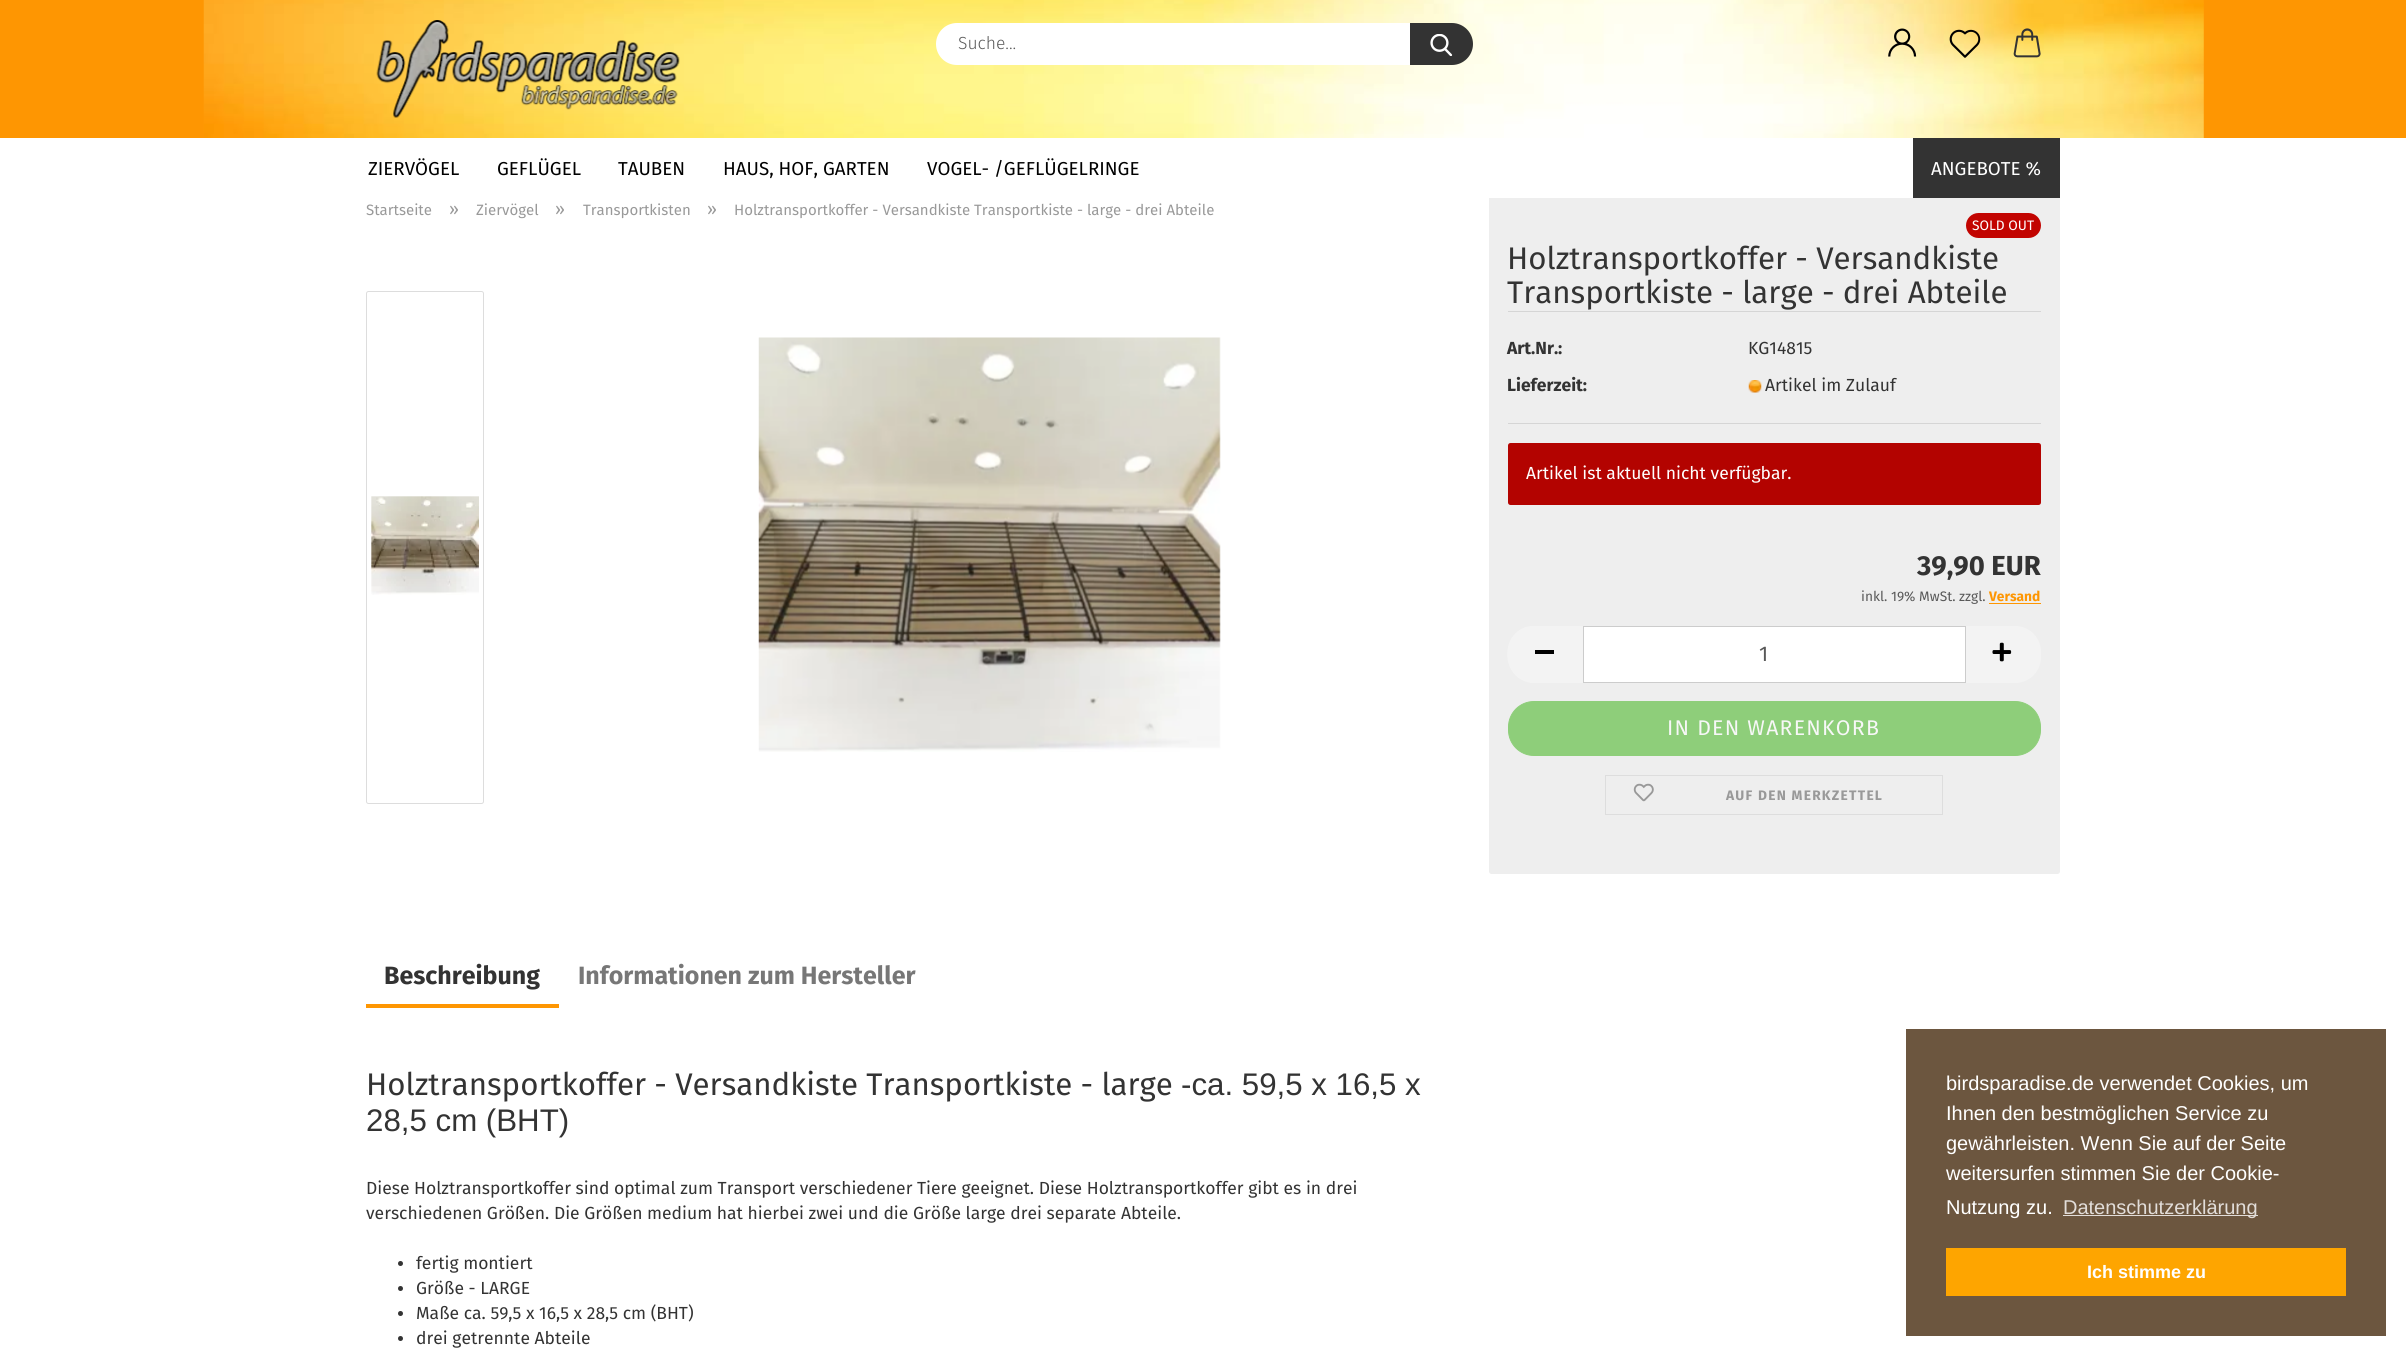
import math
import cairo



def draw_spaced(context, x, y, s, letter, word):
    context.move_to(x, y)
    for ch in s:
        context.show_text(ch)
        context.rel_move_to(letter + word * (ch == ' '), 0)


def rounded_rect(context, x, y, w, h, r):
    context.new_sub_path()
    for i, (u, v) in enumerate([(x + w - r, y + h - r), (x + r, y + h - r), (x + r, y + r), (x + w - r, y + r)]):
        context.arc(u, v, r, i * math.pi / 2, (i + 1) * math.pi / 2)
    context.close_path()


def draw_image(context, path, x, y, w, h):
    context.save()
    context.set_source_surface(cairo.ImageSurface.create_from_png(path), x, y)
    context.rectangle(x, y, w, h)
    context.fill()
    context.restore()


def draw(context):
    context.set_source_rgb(1, 1, 1)
    context.paint()
    context.set_source_rgb(254 / 255, 150 / 255, 2 / 255)
    context.rectangle(0, 0, 2406, 138)
    context.fill()
    draw_image(context, "images/1.png", 203, 0, 2001, 138)
    draw_image(context, "images/2.png", 376, 20, 304, 98)
    context.set_source_rgb(1, 1, 1)
    rounded_rect(context, 937.5, 24.5, 531, 39, 19.5)
    context.fill_preserve()
    context.set_line_width(3)
    context.stroke()
    context.set_source_rgb(51 / 255, 51 / 255, 51 / 255)
    context.new_path()
    context.move_to(1410, 23)
    context.line_to(1452, 23)
    context.curve_to(1463.5, 23, 1473, 32.5, 1473, 44)
    context.curve_to(1473, 55.5, 1463.5, 65, 1452, 65)
    context.line_to(1410, 65)
    context.close_path()
    context.fill()
    draw_image(context, "images/3.png", 1430, 34, 23, 22)
    draw_image(context, "images/4.png", 1888, 28, 29, 29)
    draw_image(context, "images/5.png", 1949, 29, 32, 29)
    draw_image(context, "images/6.png", 2013, 28, 28, 30)
    context.set_source_rgb(238 / 255, 238 / 255, 238 / 255)
    rounded_rect(context, 1489, 194, 571, 680, 2.5)
    context.fill()
    context.set_source_rgb(1, 1, 1)
    context.rectangle(1489, 194, 571, 4)
    context.fill()
    context.set_source_rgb(51 / 255, 51 / 255, 51 / 255)
    context.rectangle(1913, 138, 147, 60)
    context.fill()
    rounded_rect(context, 366.5, 291.5, 117, 512, 2)
    context.set_source_rgb(221 / 255, 221 / 255, 221 / 255)
    context.set_line_width(1)
    context.stroke()
    draw_image(context, "images/7.png", 371, 496, 108, 99)
    draw_image(context, "images/8.png", 758, 337, 463, 415)
    context.set_source_rgb(194 / 255, 4 / 255, 0)
    rounded_rect(context, 1966, 213, 75, 25, 12.5)
    context.fill()
    context.set_source_rgb(213 / 255, 213 / 255, 213 / 255)
    context.rectangle(1508, 311, 533, 1)
    context.fill()
    context.rectangle(1508, 423, 533, 1)
    context.fill()
    draw_image(context, "images/9.png", 1748, 380, 14, 13)
    context.set_source_rgb(179 / 255, 3 / 255, 0)
    rounded_rect(context, 1508, 443, 533, 62, 2.5)
    context.fill()
    context.set_source_rgb(254 / 255, 150 / 255, 2 / 255)
    context.rectangle(1989, 603, 52, 1)
    context.fill()
    context.set_source_rgb(243 / 255, 243 / 255, 243 / 255)
    context.new_path()
    context.move_to(1534, 626)
    context.line_to(1583, 626)
    context.line_to(1583, 683)
    context.line_to(1534, 683)
    context.curve_to(1519.5, 683, 1508, 671.5, 1508, 657)
    context.line_to(1508, 652)
    context.curve_to(1508, 637.5, 1519.5, 626, 1534, 626)
    context.close_path()
    context.fill()
    context.set_fill_rule(cairo.FillRule.EVEN_ODD)
    context.new_path()
    context.move_to(1534, 626)
    context.line_to(1582, 626)
    context.line_to(1582, 682)
    context.line_to(1550, 682)
    context.curve_to(1541, 682, 1532, 684, 1524, 680)
    context.curve_to(1497, 669, 1504, 626, 1534, 626)
    context.close_path()
    context.move_to(1534, 628)
    context.line_to(1582, 628)
    context.line_to(1582, 681)
    context.line_to(1550, 681)
    context.curve_to(1542, 681, 1532, 683, 1524, 679)
    context.curve_to(1499, 669, 1506, 628, 1534, 628)
    context.close_path()
    context.fill()
    context.set_source_rgb(0, 0, 0)
    context.rectangle(1535, 650, 19, 4)
    context.fill()
    context.set_source_rgb(1, 1, 1)
    context.rectangle(1583.5, 626.5, 382, 56)
    context.fill_preserve()
    context.set_source_rgb(204 / 255, 204 / 255, 204 / 255)
    context.stroke()
    context.set_source_rgb(243 / 255, 243 / 255, 243 / 255)
    context.new_path()
    context.move_to(1966, 626)
    context.line_to(2015, 626)
    context.curve_to(2029.5, 626, 2041, 637.5, 2041, 652)
    context.line_to(2041, 657)
    context.curve_to(2041, 671.5, 2029.5, 683, 2015, 683)
    context.line_to(1966, 683)
    context.close_path()
    context.fill()
    draw_image(context, "images/10.png", 1992, 642, 20, 20)
    context.set_source_rgb(142 / 255, 206 / 255, 122 / 255)
    rounded_rect(context, 1508.5, 701.5, 532, 54, 25.5)
    context.fill_preserve()
    context.stroke()
    context.rectangle(1605.5, 775.5, 337, 39)
    context.set_source_rgb(221 / 255, 221 / 255, 221 / 255)
    context.stroke()
    draw_image(context, "images/11.png", 1633, 783, 21, 19)
    context.set_source_rgb(254 / 255, 150 / 255, 2 / 255)
    context.rectangle(366, 1004, 193, 4)
    context.fill()
    context.set_source_rgb(51 / 255, 51 / 255, 51 / 255)
    context.arc(400.5, 1263.5, 2.5, 0, 2 * math.pi)
    context.fill()
    context.arc(400.5, 1288.5, 2.5, 0, 2 * math.pi)
    context.fill()
    context.arc(400.5, 1313.5, 2.5, 0, 2 * math.pi)
    context.fill()
    context.arc(400.5, 1338.5, 2.5, 0, 2 * math.pi)
    context.fill()
    context.set_source_rgb(108 / 255, 86 / 255, 63 / 255)
    context.rectangle(1906, 1029, 480, 307)
    context.fill()
    context.set_source_rgb(226 / 255, 221 / 255, 217 / 255)
    context.rectangle(2063, 1215, 195, 1)
    context.fill()
    context.set_source_rgb(254 / 255, 165 / 255, 0)
    context.rectangle(1946, 1248, 400, 48)
    context.fill()
    context.select_font_face("Fira Sans Light")
    context.set_font_size(17.5)
    context.set_source_rgb(89 / 255, 89 / 255, 89 / 255)
    context.move_to(958, 49)
    context.show_text("Suche...")
    context.select_font_face("Fira Sans")
    context.set_font_size(18.75)
    context.set_source_rgb(0, 0, 0)
    context.move_to(368, 175)
    context.show_text("ZIERVÖGEL")
    context.move_to(497, 175)
    context.show_text("GEFLÜGEL")
    context.move_to(618, 175)
    context.show_text("TAUBEN")
    context.move_to(723, 175)
    context.show_text("HAUS, HOF, GARTEN")
    context.move_to(927, 175)
    context.show_text("VOGEL- /GEFLÜGELRINGE")
    context.set_source_rgb(1, 1, 1)
    context.move_to(1931, 175)
    context.show_text("ANGEBOTE %")
    context.set_font_size(15)
    context.set_source_rgb(153 / 255, 153 / 255, 153 / 255)
    context.move_to(366, 215)
    context.show_text("Startseite")
    context.set_font_size(17.5)
    context.move_to(449, 215)
    context.show_text("»")
    context.set_font_size(15)
    context.move_to(476, 215)
    context.show_text("Ziervögel")
    context.set_font_size(17.5)
    context.move_to(555, 215)
    context.show_text("»")
    context.set_font_size(15)
    context.move_to(583, 215)
    context.show_text("Transportkisten")
    context.set_font_size(17.5)
    context.move_to(707, 215)
    context.show_text("»")
    context.set_font_size(15)
    context.move_to(734, 215)
    context.show_text("Holztransportkoffer - Versandkiste Transportkiste - large - drei Abteile")
    context.set_font_size(13.75)
    context.set_source_rgb(1, 1, 1)
    context.move_to(1972, 230)
    context.show_text("SOLD OUT")
    context.set_font_size(31.25)
    context.set_source_rgb(51 / 255, 51 / 255, 51 / 255)
    context.move_to(1507, 269)
    context.show_text("Holztransportkoffer - Versandkiste")
    context.move_to(1507, 303)
    context.show_text("Transportkiste - large - drei Abteile")
    context.select_font_face("Fira Sans", cairo.FontSlant.NORMAL, cairo.FontWeight.BOLD)
    context.set_font_size(17.5)
    context.move_to(1507, 354)
    context.show_text("Art.Nr.:")
    context.select_font_face("Fira Sans")
    context.move_to(1748, 354)
    context.show_text("KG14815")
    context.select_font_face("Fira Sans", cairo.FontSlant.NORMAL, cairo.FontWeight.BOLD)
    context.move_to(1507, 391)
    context.show_text("Lieferzeit:")
    context.select_font_face("Fira Sans")
    context.move_to(1765, 391)
    context.show_text("Artikel im Zulauf")
    context.set_source_rgb(1, 1, 1)
    context.move_to(1526, 479)
    context.show_text("Artikel ist aktuell nicht verfügbar.")
    context.select_font_face("Fira Sans", cairo.FontSlant.NORMAL, cairo.FontWeight.BOLD)
    context.set_font_size(27.5)
    context.set_source_rgb(51 / 255, 51 / 255, 51 / 255)
    context.move_to(1917, 575)
    context.show_text("39,90 EUR")
    context.select_font_face("Fira Sans")
    context.set_font_size(13.75)
    context.set_source_rgb(89 / 255, 89 / 255, 89 / 255)
    context.move_to(1861, 601)
    context.show_text("inkl. 19% MwSt. zzgl.")
    context.select_font_face("Fira Sans", cairo.FontSlant.NORMAL, cairo.FontWeight.BOLD)
    context.set_source_rgb(254 / 255, 150 / 255, 2 / 255)
    context.move_to(1989, 601)
    context.show_text("Versand")
    context.select_font_face("Fira Sans")
    context.set_font_size(21.25)
    context.set_source_rgb(89 / 255, 89 / 255, 89 / 255)
    context.move_to(1759, 661)
    context.show_text("1")
    context.set_source_rgb(247 / 255, 247 / 255, 247 / 255)
    draw_spaced(context, 1667, 735, "IN DEN WARENKORB", 1.25, 0)
    context.select_font_face("Fira Sans", cairo.FontSlant.NORMAL, cairo.FontWeight.BOLD)
    context.set_font_size(13.75)
    context.set_source_rgb(153 / 255, 153 / 255, 153 / 255)
    draw_spaced(context, 1726, 800, "AUF DEN MERKZETTEL", 1.25, 0)
    context.set_font_size(25)
    context.set_source_rgb(51 / 255, 51 / 255, 51 / 255)
    context.move_to(384, 984)
    context.show_text("Beschreibung")
    context.set_source_rgb(119 / 255, 119 / 255, 119 / 255)
    context.move_to(578, 984)
    context.show_text("Informationen zum Hersteller")
    context.select_font_face("Fira Sans")
    context.set_font_size(31.25)
    context.set_source_rgb(51 / 255, 51 / 255, 51 / 255)
    context.move_to(366, 1095)
    context.show_text("Holztransportkoffer - Versandkiste Transportkiste - large")
    context.select_font_face("Liberation Sans")
    context.move_to(1181, 1095)
    context.show_text("-ca. 59,5 x 16,5 x")
    context.move_to(366, 1131)
    context.show_text("28,5 cm (BHT)")
    context.select_font_face("Fira Sans")
    context.set_font_size(17.5)
    context.move_to(366, 1194)
    context.show_text("Diese Holztransportkoffer sind optimal zum Transport verschiedener Tiere geeignet. Diese Holztransportkoffer gibt es in drei")
    context.move_to(366, 1219)
    context.show_text("verschiedenen Größen. Die Größen medium hat hierbei zwei und die Größe large drei separate Abteile.")
    context.move_to(416, 1269)
    context.show_text("fertig montiert")
    context.move_to(416, 1294)
    context.show_text("Größe - LARGE")
    context.move_to(416, 1319)
    context.show_text("Maße ca. 59,5 x 16,5 x 28,5 cm (BHT)")
    context.move_to(416, 1344)
    context.show_text("drei getrennte Abteile")
    context.select_font_face("Liberation Sans")
    context.set_font_size(20)
    context.set_source_rgb(1, 1, 1)
    context.move_to(1946, 1090)
    context.show_text("birdsparadise.de verwendet Cookies, um")
    context.move_to(1946, 1120)
    context.show_text("Ihnen den bestmöglichen Service zu")
    context.move_to(1946, 1150)
    context.show_text("gewährleisten. Wenn Sie auf der Seite")
    context.move_to(1946, 1180)
    context.show_text("weitersurfen stimmen Sie der Cookie-")
    context.move_to(1946, 1214)
    context.show_text("Nutzung zu.")
    context.set_source_rgb(226 / 255, 221 / 255, 217 / 255)
    context.move_to(2063, 1214)
    context.show_text("Datenschutzerklärung")
    context.select_font_face("Liberation Sans", cairo.FontSlant.NORMAL, cairo.FontWeight.BOLD)
    context.set_font_size(18)
    context.set_source_rgb(1, 1, 1)
    context.move_to(2087, 1278)
    context.show_text("Ich stimme zu")


surface = cairo.ImageSurface(cairo.Format.RGB24, 2406, 1356)
context = cairo.Context(surface)
options = cairo.FontOptions()
options.set_hint_metrics(cairo.HintMetrics.OFF)
options.set_hint_style(cairo.HintStyle.NONE)
context.set_font_options(options)
context.set_miter_limit(4)
draw(context)
surface.write_to_png("out.png")
